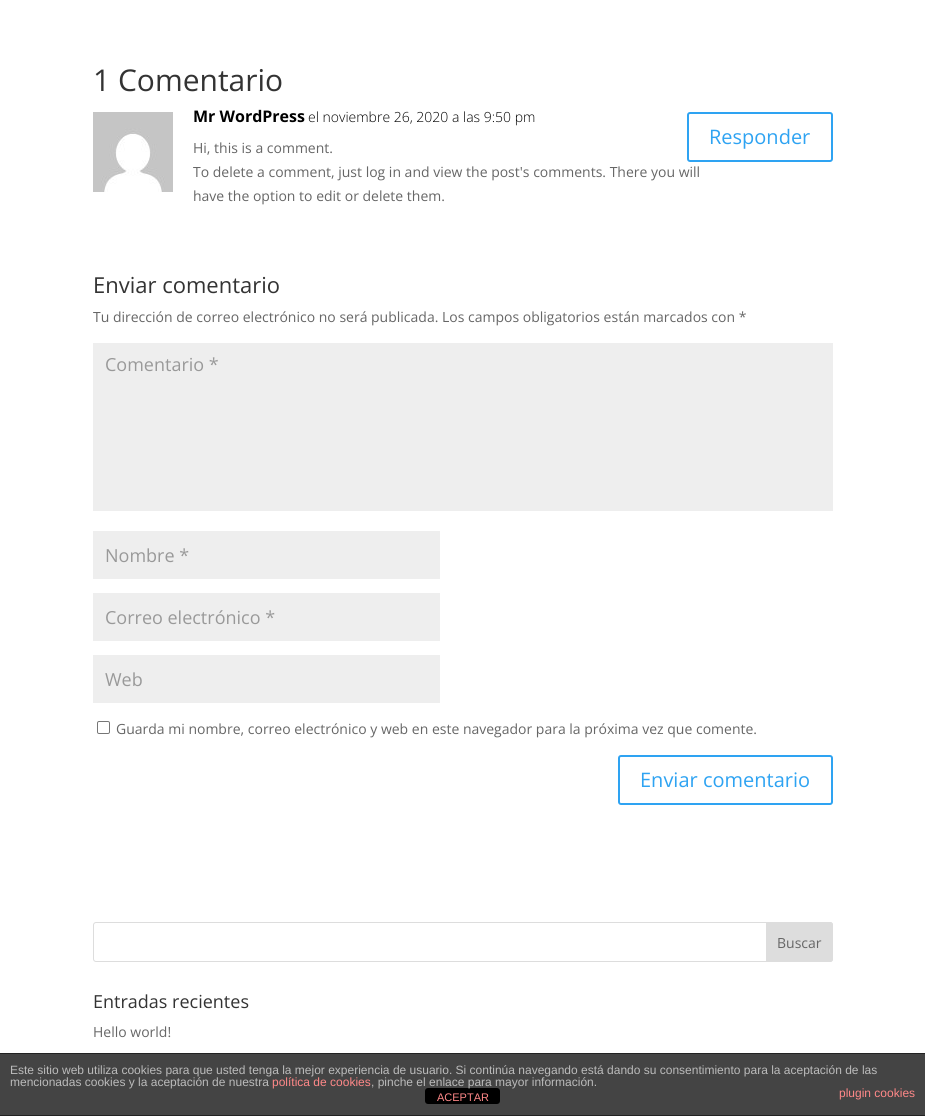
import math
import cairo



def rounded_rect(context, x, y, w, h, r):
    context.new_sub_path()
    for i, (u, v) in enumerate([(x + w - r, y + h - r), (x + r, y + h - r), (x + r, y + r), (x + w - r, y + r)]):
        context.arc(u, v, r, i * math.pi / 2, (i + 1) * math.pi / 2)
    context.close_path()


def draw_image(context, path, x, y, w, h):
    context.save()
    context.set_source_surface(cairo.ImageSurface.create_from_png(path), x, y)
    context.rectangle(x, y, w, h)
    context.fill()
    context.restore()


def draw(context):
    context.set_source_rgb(1, 1, 1)
    context.paint()
    draw_image(context, "images/1.png", 93, 112, 80, 80)
    rounded_rect(context, 688, 113, 144, 48, 2)
    context.set_source_rgb(46 / 255, 163 / 255, 242 / 255)
    context.stroke()
    context.set_source_rgb(238 / 255, 238 / 255, 238 / 255)
    context.rectangle(93, 343, 740, 168)
    context.fill()
    context.rectangle(93, 531, 347, 48)
    context.fill()
    context.rectangle(93, 593, 347, 48)
    context.fill()
    context.rectangle(93, 655, 347, 48)
    context.fill()
    rounded_rect(context, 97.5, 721.5, 12, 12, 1.5)
    context.set_source_rgb(118 / 255, 118 / 255, 118 / 255)
    context.set_line_width(1)
    context.stroke()
    rounded_rect(context, 619, 756, 213, 48, 2)
    context.set_source_rgb(46 / 255, 163 / 255, 242 / 255)
    context.set_line_width(2)
    context.stroke()
    rounded_rect(context, 93.5, 922.5, 739, 39, 2.5)
    context.set_source_rgb(221 / 255, 221 / 255, 221 / 255)
    context.set_line_width(1)
    context.stroke()
    context.new_path()
    context.move_to(766.5, 922.5)
    context.line_to(830, 922.5)
    context.curve_to(831.5, 922.5, 832.5, 923.5, 832.5, 925)
    context.line_to(832.5, 959)
    context.curve_to(832.5, 960.5, 831.5, 961.5, 830, 961.5)
    context.line_to(766.5, 961.5)
    context.close_path()
    context.fill_preserve()
    context.stroke()
    context.set_source_rgb(68 / 255, 68 / 255, 68 / 255)
    context.rectangle(0, 1054, 925, 61)
    context.fill()
    context.set_source_rgb(34 / 255, 34 / 255, 34 / 255)
    context.rectangle(0, 1053, 925, 1)
    context.fill()
    context.rectangle(0, 1115, 925, 1)
    context.fill()
    context.set_source_rgb(0, 0, 0)
    rounded_rect(context, 425, 1088, 75, 16, 3)
    context.fill()
    context.select_font_face("Open Sans")
    context.set_font_size(30)
    context.set_source_rgb(51 / 255, 51 / 255, 51 / 255)
    context.move_to(93, 91)
    context.show_text("1 Comentario")
    context.select_font_face("Open Sans", cairo.FontSlant.NORMAL, cairo.FontWeight.BOLD)
    context.set_font_size(16)
    context.set_source_rgb(0, 0, 0)
    context.move_to(193, 122)
    context.show_text("Mr WordPress")
    context.select_font_face("Open Sans Light")
    context.set_font_size(14)
    context.move_to(308, 122)
    context.show_text("el noviembre 26, 2020 a las 9:50 pm")
    context.select_font_face("Open Sans")
    context.set_font_size(20)
    context.set_source_rgb(46 / 255, 163 / 255, 242 / 255)
    context.move_to(709, 144)
    context.show_text("Responder")
    context.set_font_size(14)
    context.set_source_rgb(102 / 255, 102 / 255, 102 / 255)
    context.move_to(193, 153)
    context.show_text("Hi, this is a comment.")
    context.move_to(193, 177)
    context.show_text("To delete a comment, just log in and view the post's comments. There you will")
    context.move_to(193, 201)
    context.show_text("have the option to edit or delete them.")
    context.set_font_size(22)
    context.set_source_rgb(51 / 255, 51 / 255, 51 / 255)
    context.move_to(93, 293)
    context.show_text("Enviar comentario")
    context.set_font_size(14)
    context.set_source_rgb(102 / 255, 102 / 255, 102 / 255)
    context.move_to(93, 322)
    context.show_text("Tu dirección de correo electrónico no será publicada. Los campos obligatorios están marcados con *")
    context.set_font_size(18)
    context.set_source_rgb(153 / 255, 153 / 255, 153 / 255)
    context.move_to(105, 371)
    context.show_text("Comentario *")
    context.move_to(105, 562)
    context.show_text("Nombre *")
    context.move_to(105, 624)
    context.show_text("Correo electrónico *")
    context.move_to(105, 686)
    context.show_text("Web")
    context.set_font_size(14)
    context.set_source_rgb(102 / 255, 102 / 255, 102 / 255)
    context.move_to(116, 734)
    context.show_text("Guarda mi nombre, correo electrónico y web en este navegador para la próxima vez que comente.")
    context.set_font_size(20)
    context.set_source_rgb(46 / 255, 163 / 255, 242 / 255)
    context.move_to(640, 787)
    context.show_text("Enviar comentario")
    context.set_font_size(14)
    context.set_source_rgb(102 / 255, 102 / 255, 102 / 255)
    context.move_to(777, 948)
    context.show_text("Buscar")
    context.set_font_size(18)
    context.set_source_rgb(51 / 255, 51 / 255, 51 / 255)
    context.move_to(93, 1008)
    context.show_text("Entradas recientes")
    context.set_font_size(14)
    context.set_source_rgb(102 / 255, 102 / 255, 102 / 255)
    context.move_to(93, 1037)
    context.show_text("Hello world!")
    context.select_font_face("Liberation Sans")
    context.set_font_size(12)
    context.set_source_rgb(187 / 255, 187 / 255, 187 / 255)
    context.move_to(10, 1074)
    context.show_text("Este sitio web utiliza cookies para que usted tenga la mejor experiencia de usuario. Si continúa navegando está dando su consentimiento para la aceptación de las")
    context.move_to(10, 1086)
    context.show_text("mencionadas cookies y la aceptación de nuestra")
    context.set_source_rgb(1, 136 / 255, 136 / 255)
    context.move_to(272, 1086)
    context.show_text("política de cookies")
    context.set_source_rgb(187 / 255, 187 / 255, 187 / 255)
    context.move_to(371, 1086)
    context.show_text(", pinche el enlace para mayor información.")
    context.set_source_rgb(1, 136 / 255, 136 / 255)
    context.move_to(839, 1097)
    context.show_text("plugin cookies")
    context.set_font_size(11)
    context.move_to(437, 1101)
    context.show_text("ACEPTAR")


surface = cairo.ImageSurface(cairo.Format.RGB24, 925, 1116)
context = cairo.Context(surface)
options = cairo.FontOptions()
options.set_hint_metrics(cairo.HintMetrics.OFF)
options.set_hint_style(cairo.HintStyle.NONE)
context.set_font_options(options)
context.set_miter_limit(4)
draw(context)
surface.write_to_png("out.png")
